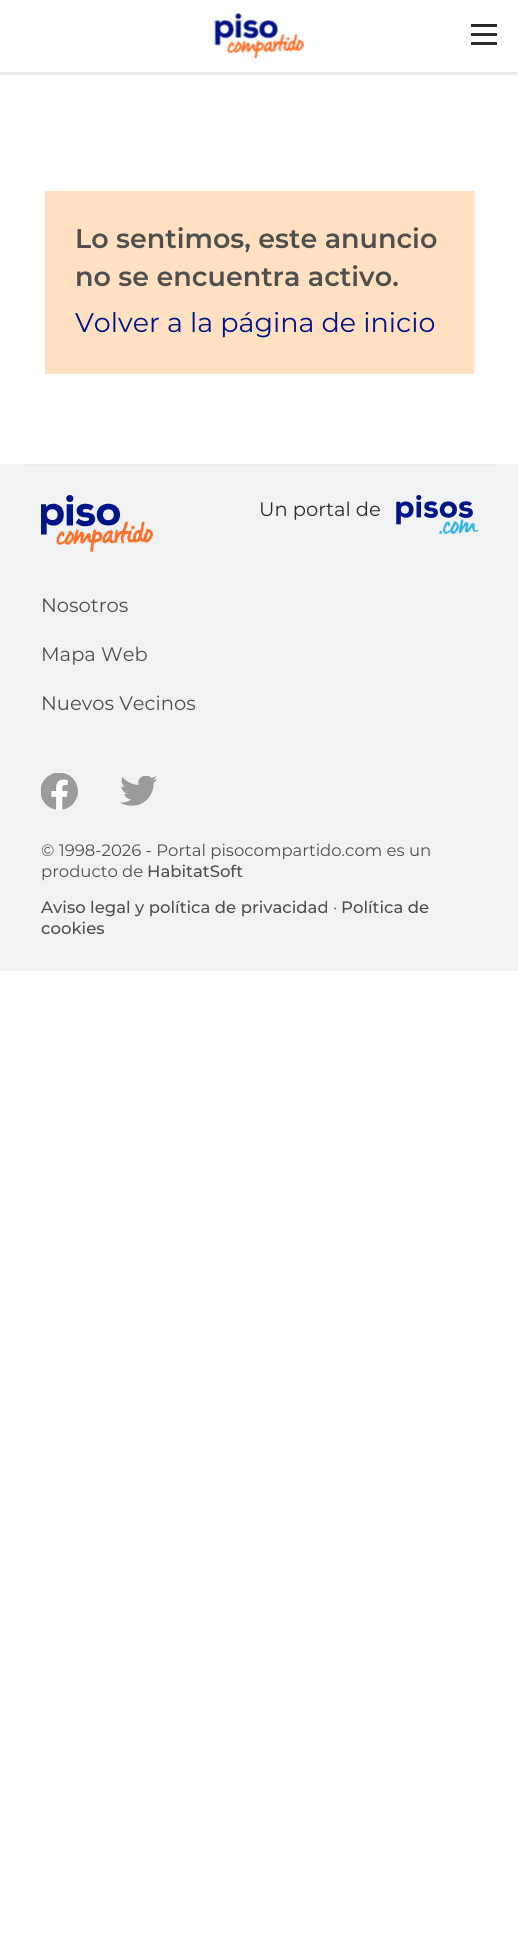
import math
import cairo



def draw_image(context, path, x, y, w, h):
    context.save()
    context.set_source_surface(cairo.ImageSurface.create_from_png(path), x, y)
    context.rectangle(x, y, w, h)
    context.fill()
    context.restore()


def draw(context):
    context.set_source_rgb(1, 1, 1)
    context.paint()
    context.set_source_rgb(236 / 255, 236 / 255, 236 / 255)
    context.rectangle(0, 72, 518, 3)
    context.fill()
    draw_image(context, "images/1.png", 214, 13, 91, 46)
    context.set_source_rgb(42 / 255, 42 / 255, 42 / 255)
    context.rectangle(471, 24, 26, 3)
    context.fill()
    context.rectangle(471, 33, 26, 3)
    context.fill()
    context.rectangle(471, 42, 26, 3)
    context.fill()
    context.set_source_rgb(1, 224 / 255, 192 / 255)
    context.rectangle(45, 191, 429, 183)
    context.fill()
    context.set_source_rgb(240 / 255, 242 / 255, 243 / 255)
    context.rectangle(0, 464, 518, 507)
    context.fill()
    context.set_source_rgb(237 / 255, 237 / 255, 237 / 255)
    context.rectangle(23, 464, 474, 2)
    context.fill()
    draw_image(context, "images/2.png", 41, 495, 112, 57)
    draw_image(context, "images/3.png", 396, 495, 83, 39)
    draw_image(context, "images/4.png", 41, 773, 37, 37)
    draw_image(context, "images/5.png", 120, 776, 37, 30)
    context.select_font_face("Montserrat SemiBold")
    context.set_font_size(27)
    context.set_source_rgb(79 / 255, 79 / 255, 79 / 255)
    context.move_to(75, 248)
    context.show_text("Lo sentimos, este anuncio")
    context.move_to(75, 286)
    context.show_text("no se encuentra activo.")
    context.select_font_face("Montserrat")
    context.set_source_rgb(0, 20 / 255, 137 / 255)
    context.move_to(75, 332)
    context.show_text("Volver a la página de inicio")
    context.set_font_size(19.5)
    context.set_source_rgb(42 / 255, 42 / 255, 42 / 255)
    context.move_to(259, 516)
    context.show_text("Un portal de")
    context.set_source_rgb(79 / 255, 79 / 255, 79 / 255)
    context.move_to(41, 612)
    context.show_text("Nosotros")
    context.move_to(41, 661)
    context.show_text("Mapa Web")
    context.move_to(41, 710)
    context.show_text("Nuevos Vecinos")
    context.set_font_size(16.5)
    context.move_to(41, 856)
    context.show_text("© 1998-2026 - Portal pisocompartido.com es un")
    context.move_to(41, 877)
    context.show_text("producto de")
    context.select_font_face("Montserrat Medium")
    context.move_to(147, 877)
    context.show_text("HabitatSoft")
    context.move_to(41, 913)
    context.show_text("Aviso legal y política de privacidad")
    context.select_font_face("Montserrat")
    context.move_to(333, 913)
    context.show_text("·")
    context.select_font_face("Montserrat Medium")
    context.move_to(341, 913)
    context.show_text("Política de")
    context.move_to(41, 934)
    context.show_text("cookies")


surface = cairo.ImageSurface(cairo.Format.RGB24, 518, 1948)
context = cairo.Context(surface)
options = cairo.FontOptions()
options.set_hint_metrics(cairo.HintMetrics.OFF)
options.set_hint_style(cairo.HintStyle.NONE)
context.set_font_options(options)
context.set_miter_limit(4)
draw(context)
surface.write_to_png("out.png")
